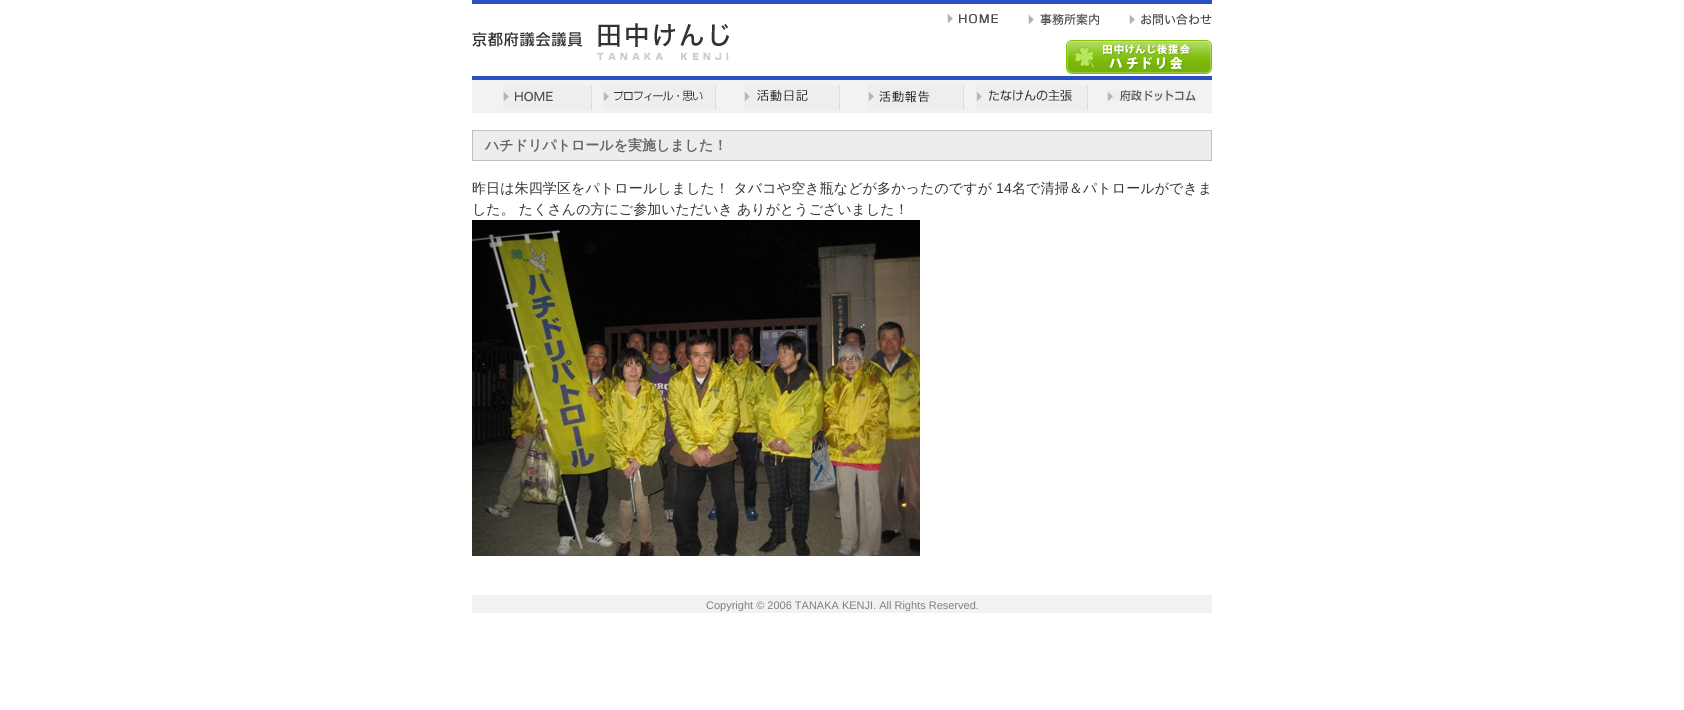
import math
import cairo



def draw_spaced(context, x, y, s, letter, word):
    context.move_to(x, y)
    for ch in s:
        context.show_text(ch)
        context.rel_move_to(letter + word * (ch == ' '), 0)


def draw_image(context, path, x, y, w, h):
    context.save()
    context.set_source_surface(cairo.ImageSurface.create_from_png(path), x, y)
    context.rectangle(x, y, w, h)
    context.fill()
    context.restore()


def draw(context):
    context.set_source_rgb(1, 1, 1)
    context.paint()
    context.set_source_rgb(43 / 255, 79 / 255, 196 / 255)
    context.rectangle(472, 0, 740, 4)
    context.fill()
    context.rectangle(472, 76, 740, 4)
    context.fill()
    draw_image(context, "images/1.png", 472, 23, 257, 37)
    draw_image(context, "images/2.png", 947, 13, 51, 11)
    draw_image(context, "images/3.png", 1028, 13, 71, 12)
    draw_image(context, "images/4.png", 1129, 14, 83, 11)
    draw_image(context, "images/5.png", 1066, 40, 146, 34)
    context.set_source_rgb(242 / 255, 242 / 255, 242 / 255)
    context.rectangle(472, 80, 740, 33)
    context.fill()
    draw_image(context, "images/6.png", 503, 85, 89, 25)
    draw_image(context, "images/7.png", 603, 85, 113, 25)
    draw_image(context, "images/8.png", 744, 85, 96, 25)
    draw_image(context, "images/9.png", 868, 85, 96, 25)
    draw_image(context, "images/10.png", 976, 85, 112, 25)
    draw_image(context, "images/11.png", 1107, 90, 89, 11)
    context.set_source_rgb(237 / 255, 237 / 255, 237 / 255)
    context.rectangle(472.5, 130.5, 739, 30)
    context.fill_preserve()
    context.set_source_rgb(191 / 255, 191 / 255, 191 / 255)
    context.set_line_width(1)
    context.stroke()
    draw_image(context, "images/12.png", 472, 220, 448, 336)
    context.set_source_rgb(242 / 255, 242 / 255, 242 / 255)
    context.rectangle(472, 595, 740, 18)
    context.fill()
    context.select_font_face("WenQuanYi Zen Hei", cairo.FontSlant.NORMAL, cairo.FontWeight.BOLD)
    context.set_font_size(14)
    context.set_source_rgb(102 / 255, 102 / 255, 102 / 255)
    context.move_to(485, 150)
    context.show_text("ハチドリパトロールを実施しました！")
    context.select_font_face("WenQuanYi Zen Hei Medium")
    context.set_source_rgb(51 / 255, 51 / 255, 51 / 255)
    draw_spaced(context, 472, 193, "昨日は朱四学区をパトロールしました！ タバコや空き瓶などが多かったのですが", 0.1, 0)
    context.select_font_face("Liberation Sans")
    draw_spaced(context, 996, 193, "14", 0.1, 0)
    context.select_font_face("WenQuanYi Zen Hei Medium")
    draw_spaced(context, 1012, 193, "名で清掃＆パトロールができま", 0.1, 0)
    context.move_to(472, 214)
    context.show_text("した。 たくさんの方にご参加いただいき ありがとうございました！")
    context.select_font_face("Liberation Sans")
    context.set_font_size(11)
    context.set_source_rgb(128 / 255, 128 / 255, 128 / 255)
    context.move_to(706, 609)
    context.show_text("Copyright © 2006 TANAKA KENJI. All Rights Reserved.")


surface = cairo.ImageSurface(cairo.Format.RGB24, 1684, 710)
context = cairo.Context(surface)
options = cairo.FontOptions()
options.set_hint_metrics(cairo.HintMetrics.OFF)
options.set_hint_style(cairo.HintStyle.NONE)
context.set_font_options(options)
context.set_miter_limit(4)
draw(context)
surface.write_to_png("out.png")
